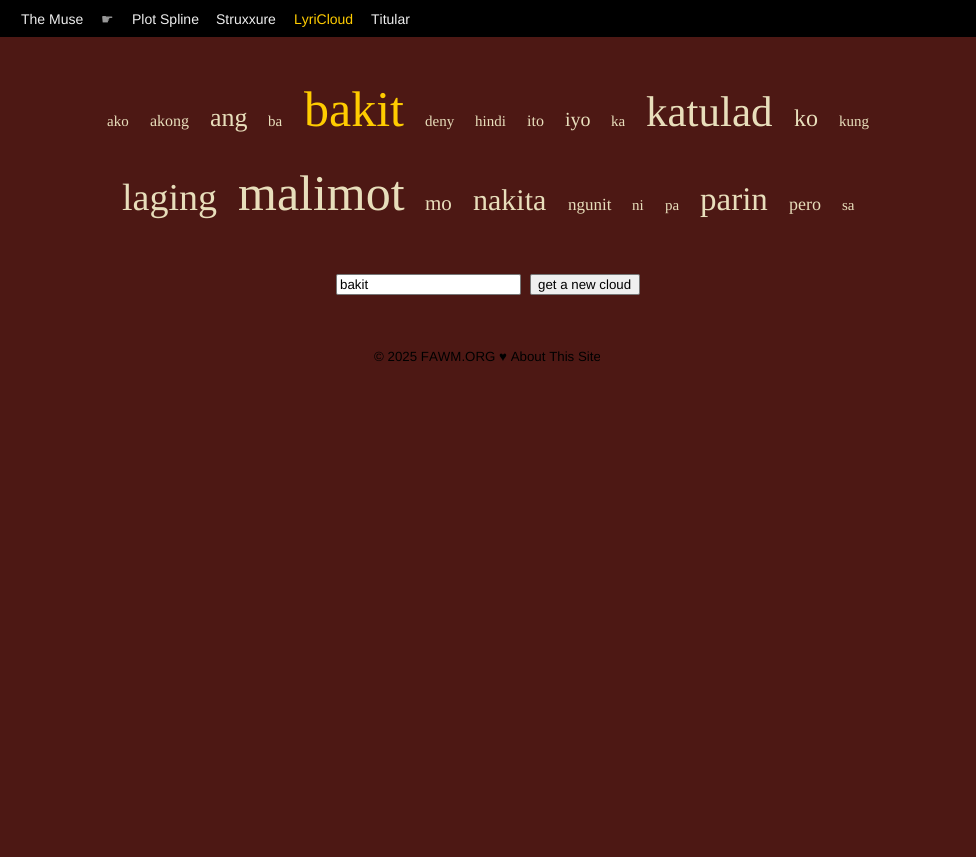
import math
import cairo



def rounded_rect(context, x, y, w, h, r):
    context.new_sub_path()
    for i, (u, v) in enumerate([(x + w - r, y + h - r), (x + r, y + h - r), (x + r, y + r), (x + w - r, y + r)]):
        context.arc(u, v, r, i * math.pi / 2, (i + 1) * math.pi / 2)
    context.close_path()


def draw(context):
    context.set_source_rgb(77 / 255, 24 / 255, 20 / 255)
    context.paint()
    context.set_source_rgb(0, 0, 0)
    context.rectangle(0, 0, 976, 37)
    context.fill()
    context.set_source_rgb(1, 1, 1)
    rounded_rect(context, 336.5, 274.5, 184, 20, 1.5)
    context.fill_preserve()
    context.set_source_rgb(118 / 255, 118 / 255, 118 / 255)
    context.set_line_width(1)
    context.stroke()
    context.set_source_rgb(239 / 255, 239 / 255, 239 / 255)
    rounded_rect(context, 530.5, 274.5, 109, 20, 1.5)
    context.fill_preserve()
    context.set_source_rgb(118 / 255, 118 / 255, 118 / 255)
    context.stroke()
    context.select_font_face("Liberation Sans")
    context.set_font_size(14)
    context.set_source_rgb(238 / 255, 238 / 255, 238 / 255)
    context.move_to(21, 24)
    context.show_text("The Muse")
    context.select_font_face("DejaVu Sans")
    context.set_source_rgb(153 / 255, 153 / 255, 153 / 255)
    context.move_to(101, 24)
    context.show_text("☛")
    context.select_font_face("Liberation Sans")
    context.set_source_rgb(238 / 255, 238 / 255, 238 / 255)
    context.move_to(132, 24)
    context.show_text("Plot Spline")
    context.move_to(216, 24)
    context.show_text("Struxxure")
    context.set_source_rgb(1, 204 / 255, 0)
    context.move_to(294, 24)
    context.show_text("LyriCloud")
    context.set_source_rgb(238 / 255, 238 / 255, 238 / 255)
    context.move_to(371, 24)
    context.show_text("Titular")
    context.select_font_face("Liberation Serif")
    context.set_font_size(15)
    context.set_source_rgb(232 / 255, 222 / 255, 187 / 255)
    context.move_to(107, 126)
    context.show_text("ako")
    context.set_font_size(16)
    context.move_to(150, 126)
    context.show_text("akong")
    context.set_font_size(26)
    context.move_to(210, 126)
    context.show_text("ang")
    context.set_font_size(15)
    context.move_to(268, 126)
    context.show_text("ba")
    context.set_font_size(50)
    context.set_source_rgb(1, 204 / 255, 0)
    context.move_to(304, 126)
    context.show_text("bakit")
    context.set_font_size(15)
    context.set_source_rgb(232 / 255, 222 / 255, 187 / 255)
    context.move_to(425, 126)
    context.show_text("deny")
    context.move_to(475, 126)
    context.show_text("hindi")
    context.set_font_size(16)
    context.move_to(527, 126)
    context.show_text("ito")
    context.set_font_size(20)
    context.move_to(565, 126)
    context.show_text("iyo")
    context.set_font_size(15)
    context.move_to(611, 126)
    context.show_text("ka")
    context.set_font_size(43)
    context.move_to(646, 126)
    context.show_text("katulad")
    context.set_font_size(24)
    context.move_to(794, 126)
    context.show_text("ko")
    context.set_font_size(15)
    context.move_to(839, 126)
    context.show_text("kung")
    context.set_font_size(38)
    context.move_to(122, 210)
    context.show_text("laging")
    context.set_font_size(50)
    context.move_to(238, 210)
    context.show_text("malimot")
    context.set_font_size(21)
    context.move_to(425, 210)
    context.show_text("mo")
    context.set_font_size(30)
    context.move_to(473, 210)
    context.show_text("nakita")
    context.set_font_size(17)
    context.move_to(568, 210)
    context.show_text("ngunit")
    context.set_font_size(15)
    context.move_to(632, 210)
    context.show_text("ni")
    context.move_to(665, 210)
    context.show_text("pa")
    context.set_font_size(33)
    context.move_to(700, 210)
    context.show_text("parin")
    context.set_font_size(18)
    context.move_to(789, 210)
    context.show_text("pero")
    context.set_font_size(15)
    context.move_to(842, 210)
    context.show_text("sa")
    context.select_font_face("Liberation Sans")
    context.set_font_size(13.3)
    context.set_source_rgb(0, 0, 0)
    context.move_to(340, 289)
    context.show_text("bakit")
    context.move_to(538, 289)
    context.show_text("get a new cloud")
    context.move_to(374, 361)
    context.show_text("© 2025 FAWM.ORG ♥ About This Site")


surface = cairo.ImageSurface(cairo.Format.RGB24, 976, 857)
context = cairo.Context(surface)
options = cairo.FontOptions()
options.set_hint_metrics(cairo.HintMetrics.OFF)
options.set_hint_style(cairo.HintStyle.NONE)
context.set_font_options(options)
context.set_miter_limit(4)
draw(context)
surface.write_to_png("out.png")
